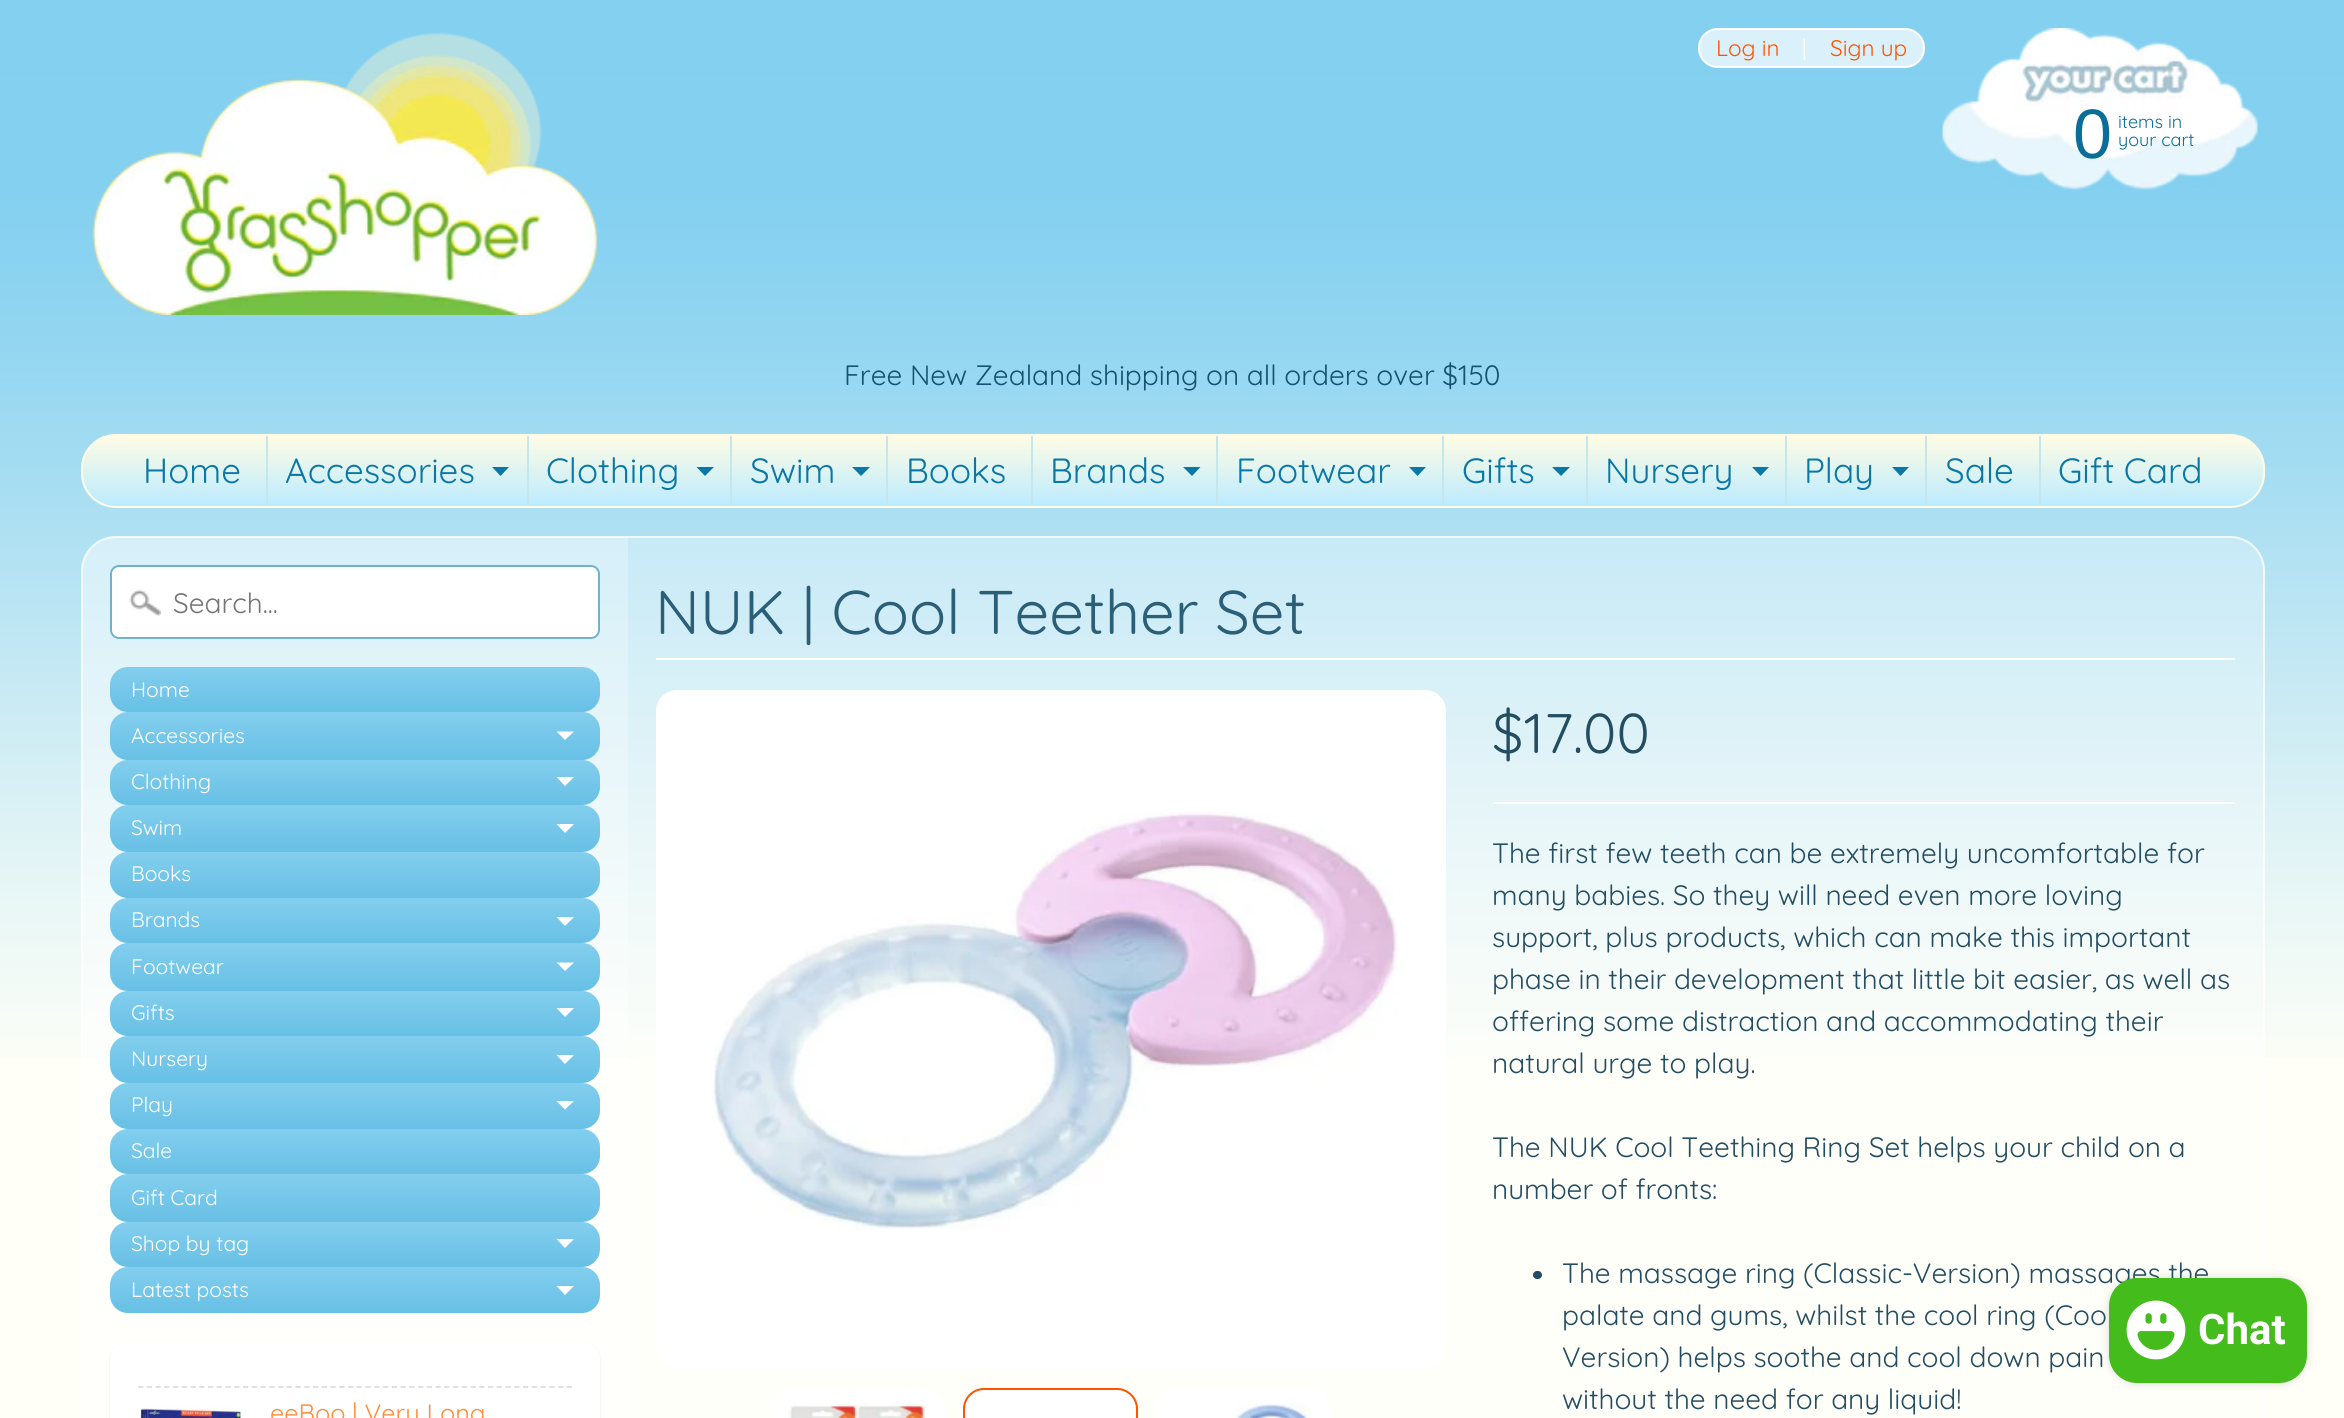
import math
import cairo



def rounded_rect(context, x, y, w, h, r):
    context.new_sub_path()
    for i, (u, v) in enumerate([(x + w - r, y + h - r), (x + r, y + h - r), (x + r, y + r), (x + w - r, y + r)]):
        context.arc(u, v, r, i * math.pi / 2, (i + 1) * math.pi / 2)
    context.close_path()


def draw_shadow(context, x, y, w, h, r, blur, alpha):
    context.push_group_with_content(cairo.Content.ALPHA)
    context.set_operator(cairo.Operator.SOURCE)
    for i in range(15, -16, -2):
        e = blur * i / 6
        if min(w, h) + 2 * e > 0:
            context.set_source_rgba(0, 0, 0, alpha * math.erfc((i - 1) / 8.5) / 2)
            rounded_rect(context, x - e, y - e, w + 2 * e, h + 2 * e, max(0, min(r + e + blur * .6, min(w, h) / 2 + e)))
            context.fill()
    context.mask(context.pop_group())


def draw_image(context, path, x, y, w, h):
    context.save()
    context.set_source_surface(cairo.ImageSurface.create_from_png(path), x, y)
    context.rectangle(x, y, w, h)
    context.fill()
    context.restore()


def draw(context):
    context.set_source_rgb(1, 1, 247 / 255)
    context.paint()
    draw_image(context, "images/1.png", 0, 0, 2344, 1058)
    draw_image(context, "images/2.png", 92, 33, 506, 282)
    context.set_source_rgb(218 / 255, 241 / 255, 251 / 255)
    rounded_rect(context, 1699, 29, 225, 38, 19)
    context.fill_preserve()
    context.set_source_rgb(1, 1, 1)
    context.stroke()
    draw_image(context, "images/3.png", 1942, 28, 316, 162)
    context.save()
    rounded_rect(context, 81, 434, 2184, 74, 35)
    context.clip()
    gradient = cairo.LinearGradient(1173, 436, 1173, 506)
    gradient.add_color_stop_rgba(0, 1, 252 / 255, 229 / 255, 1)
    gradient.add_color_stop_rgba(1, 188 / 255, 235 / 255, 1, 1)
    context.set_source(gradient)
    context.rectangle(81, 436, 2184, 70)
    context.fill()
    context.restore()
    rounded_rect(context, 82, 435, 2182, 72, 34)
    context.set_source_rgb(1, 252 / 255, 229 / 255)
    context.stroke()
    context.set_source_rgb(195 / 255, 231 / 255, 234 / 255)
    context.rectangle(266, 436, 2, 70)
    context.fill()
    context.set_source_rgb(11 / 255, 119 / 255, 166 / 255)
    context.new_path()
    context.move_to(492, 467)
    context.line_to(509, 467)
    context.line_to(500.5, 476)
    context.close_path()
    context.fill()
    context.set_source_rgb(195 / 255, 231 / 255, 234 / 255)
    context.rectangle(527, 436, 2, 70)
    context.fill()
    context.set_source_rgb(11 / 255, 119 / 255, 166 / 255)
    context.new_path()
    context.move_to(696.5, 467)
    context.line_to(714, 467)
    context.line_to(705, 476)
    context.close_path()
    context.fill()
    context.set_source_rgb(195 / 255, 231 / 255, 234 / 255)
    context.rectangle(730, 436, 2, 70)
    context.fill()
    context.set_source_rgb(11 / 255, 119 / 255, 166 / 255)
    context.new_path()
    context.move_to(852, 467)
    context.line_to(870, 467)
    context.line_to(861, 476)
    context.close_path()
    context.fill()
    context.set_source_rgb(195 / 255, 231 / 255, 234 / 255)
    context.rectangle(886, 436, 2, 70)
    context.fill()
    context.rectangle(1031, 436, 2, 70)
    context.fill()
    context.set_source_rgb(11 / 255, 119 / 255, 166 / 255)
    context.new_path()
    context.move_to(1183, 467)
    context.line_to(1200.5, 467)
    context.line_to(1192, 476)
    context.close_path()
    context.fill()
    context.set_source_rgb(195 / 255, 231 / 255, 234 / 255)
    context.rectangle(1216, 436, 2, 70)
    context.fill()
    context.set_source_rgb(11 / 255, 119 / 255, 166 / 255)
    context.new_path()
    context.move_to(1409, 467)
    context.line_to(1426, 467)
    context.line_to(1417.5, 476)
    context.close_path()
    context.fill()
    context.set_source_rgb(195 / 255, 231 / 255, 234 / 255)
    context.rectangle(1442, 436, 2, 70)
    context.fill()
    context.set_source_rgb(11 / 255, 119 / 255, 166 / 255)
    context.new_path()
    context.move_to(1552, 467)
    context.line_to(1570, 467)
    context.line_to(1561, 476)
    context.close_path()
    context.fill()
    context.set_source_rgb(195 / 255, 231 / 255, 234 / 255)
    context.rectangle(1586, 436, 2, 70)
    context.fill()
    context.set_source_rgb(11 / 255, 119 / 255, 166 / 255)
    context.new_path()
    context.move_to(1752, 467)
    context.line_to(1769, 467)
    context.line_to(1760.5, 476)
    context.close_path()
    context.fill()
    context.set_source_rgb(195 / 255, 231 / 255, 234 / 255)
    context.rectangle(1785, 436, 2, 70)
    context.fill()
    context.set_source_rgb(11 / 255, 119 / 255, 166 / 255)
    context.new_path()
    context.move_to(1892, 467)
    context.line_to(1909, 467)
    context.line_to(1900.5, 476)
    context.close_path()
    context.fill()
    context.set_source_rgb(195 / 255, 231 / 255, 234 / 255)
    context.rectangle(1925, 436, 2, 70)
    context.fill()
    context.rectangle(2039, 436, 2, 70)
    context.fill()
    context.set_source_rgba(1, 1, 1, 0.3)
    rounded_rect(context, 81, 536, 2184, 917, 35)
    context.fill()
    rounded_rect(context, 82, 537, 2182, 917, 34)
    context.set_source_rgba(1, 1, 1, 0.7)
    context.stroke()
    context.set_source_rgba(1, 1, 1, 0.25)
    context.new_path()
    context.move_to(115, 537)
    context.line_to(628, 537)
    context.line_to(628, 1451)
    context.line_to(115, 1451)
    context.curve_to(97, 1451, 82, 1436, 82, 1418)
    context.line_to(82, 570)
    context.curve_to(82, 552, 97, 537, 115, 537)
    context.close_path()
    context.fill()
    context.set_source_rgb(1, 1, 1)
    rounded_rect(context, 110, 565, 490, 74, 9)
    context.fill()
    draw_image(context, "images/4.png", 129, 589, 32, 27)
    rounded_rect(context, 111, 566, 488, 72, 8)
    context.set_source_rgb(112 / 255, 177 / 255, 204 / 255)
    context.stroke()
    gradient = cairo.LinearGradient(355, 667, 355, 712)
    gradient.add_color_stop_rgba(0, 131 / 255, 206 / 255, 238 / 255, 1)
    gradient.add_color_stop_rgba(1, 103 / 255, 192 / 255, 229 / 255, 1)
    context.set_source(gradient)
    rounded_rect(context, 110, 667, 490, 45, 18)
    context.fill()
    gradient = cairo.LinearGradient(355, 712, 355, 760)
    gradient.add_color_stop_rgba(0, 131 / 255, 206 / 255, 238 / 255, 1)
    gradient.add_color_stop_rgba(1, 103 / 255, 192 / 255, 229 / 255, 1)
    context.set_source(gradient)
    rounded_rect(context, 110, 712, 490, 48, 18)
    context.fill()
    context.set_source_rgb(1, 1, 1)
    context.new_path()
    context.move_to(556.5, 731.5)
    context.line_to(574, 731.5)
    context.line_to(565, 740)
    context.close_path()
    context.fill()
    gradient = cairo.LinearGradient(355, 760, 355, 805)
    gradient.add_color_stop_rgba(0, 131 / 255, 206 / 255, 238 / 255, 1)
    gradient.add_color_stop_rgba(1, 103 / 255, 192 / 255, 229 / 255, 1)
    context.set_source(gradient)
    rounded_rect(context, 110, 760, 490, 45, 18)
    context.fill()
    context.set_source_rgb(1, 1, 1)
    context.new_path()
    context.move_to(556.5, 777)
    context.line_to(574, 777)
    context.line_to(565, 786)
    context.close_path()
    context.fill()
    gradient = cairo.LinearGradient(355, 805, 355, 852)
    gradient.add_color_stop_rgba(0, 131 / 255, 206 / 255, 238 / 255, 1)
    gradient.add_color_stop_rgba(1, 103 / 255, 192 / 255, 229 / 255, 1)
    context.set_source(gradient)
    rounded_rect(context, 110, 805, 490, 47, 18)
    context.fill()
    context.set_source_rgb(1, 1, 1)
    context.new_path()
    context.move_to(556.5, 824)
    context.line_to(574, 824)
    context.line_to(565, 833)
    context.close_path()
    context.fill()
    gradient = cairo.LinearGradient(355, 852, 355, 898)
    gradient.add_color_stop_rgba(0, 131 / 255, 206 / 255, 238 / 255, 1)
    gradient.add_color_stop_rgba(1, 103 / 255, 192 / 255, 229 / 255, 1)
    context.set_source(gradient)
    rounded_rect(context, 110, 852, 490, 46, 18)
    context.fill()
    gradient = cairo.LinearGradient(355, 898, 355, 943)
    gradient.add_color_stop_rgba(0, 131 / 255, 206 / 255, 238 / 255, 1)
    gradient.add_color_stop_rgba(1, 103 / 255, 192 / 255, 229 / 255, 1)
    context.set_source(gradient)
    rounded_rect(context, 110, 898, 490, 45, 18)
    context.fill()
    context.set_source_rgb(1, 1, 1)
    context.new_path()
    context.move_to(556.5, 917)
    context.line_to(574, 917)
    context.line_to(565, 926)
    context.close_path()
    context.fill()
    gradient = cairo.LinearGradient(355, 943, 355, 991)
    gradient.add_color_stop_rgba(0, 131 / 255, 206 / 255, 238 / 255, 1)
    gradient.add_color_stop_rgba(1, 103 / 255, 192 / 255, 229 / 255, 1)
    context.set_source(gradient)
    rounded_rect(context, 110, 943, 490, 48, 18)
    context.fill()
    context.set_source_rgb(1, 1, 1)
    context.new_path()
    context.move_to(556.5, 962.5)
    context.line_to(574, 962.5)
    context.line_to(565, 971)
    context.close_path()
    context.fill()
    gradient = cairo.LinearGradient(355, 991, 355, 1036)
    gradient.add_color_stop_rgba(0, 131 / 255, 206 / 255, 238 / 255, 1)
    gradient.add_color_stop_rgba(1, 103 / 255, 192 / 255, 229 / 255, 1)
    context.set_source(gradient)
    rounded_rect(context, 110, 991, 490, 45, 18)
    context.fill()
    context.set_source_rgb(1, 1, 1)
    context.new_path()
    context.move_to(556.5, 1008)
    context.line_to(574, 1008)
    context.line_to(565, 1017)
    context.close_path()
    context.fill()
    gradient = cairo.LinearGradient(355, 1036, 355, 1083)
    gradient.add_color_stop_rgba(0, 131 / 255, 206 / 255, 238 / 255, 1)
    gradient.add_color_stop_rgba(1, 103 / 255, 192 / 255, 229 / 255, 1)
    context.set_source(gradient)
    rounded_rect(context, 110, 1036, 490, 47, 18)
    context.fill()
    context.set_source_rgb(1, 1, 1)
    context.new_path()
    context.move_to(556.5, 1055)
    context.line_to(574, 1055)
    context.line_to(565, 1064)
    context.close_path()
    context.fill()
    gradient = cairo.LinearGradient(355, 1083, 355, 1129)
    gradient.add_color_stop_rgba(0, 131 / 255, 206 / 255, 238 / 255, 1)
    gradient.add_color_stop_rgba(1, 103 / 255, 192 / 255, 229 / 255, 1)
    context.set_source(gradient)
    rounded_rect(context, 110, 1083, 490, 46, 18)
    context.fill()
    context.set_source_rgb(1, 1, 1)
    context.new_path()
    context.move_to(556.5, 1101)
    context.line_to(574, 1101)
    context.line_to(565, 1109.5)
    context.close_path()
    context.fill()
    gradient = cairo.LinearGradient(355, 1129, 355, 1174)
    gradient.add_color_stop_rgba(0, 131 / 255, 206 / 255, 238 / 255, 1)
    gradient.add_color_stop_rgba(1, 103 / 255, 192 / 255, 229 / 255, 1)
    context.set_source(gradient)
    rounded_rect(context, 110, 1129, 490, 45, 18)
    context.fill()
    gradient = cairo.LinearGradient(355, 1174, 355, 1222)
    gradient.add_color_stop_rgba(0, 131 / 255, 206 / 255, 238 / 255, 1)
    gradient.add_color_stop_rgba(1, 103 / 255, 192 / 255, 229 / 255, 1)
    context.set_source(gradient)
    rounded_rect(context, 110, 1174, 490, 48, 18)
    context.fill()
    gradient = cairo.LinearGradient(355, 1222, 355, 1267)
    gradient.add_color_stop_rgba(0, 131 / 255, 206 / 255, 238 / 255, 1)
    gradient.add_color_stop_rgba(1, 103 / 255, 192 / 255, 229 / 255, 1)
    context.set_source(gradient)
    rounded_rect(context, 110, 1222, 490, 45, 18)
    context.fill()
    context.set_source_rgb(1, 1, 1)
    context.new_path()
    context.move_to(556.5, 1239)
    context.line_to(574, 1239)
    context.line_to(565, 1248)
    context.close_path()
    context.fill()
    gradient = cairo.LinearGradient(355, 1267, 355, 1313)
    gradient.add_color_stop_rgba(0, 131 / 255, 206 / 255, 238 / 255, 1)
    gradient.add_color_stop_rgba(1, 103 / 255, 192 / 255, 229 / 255, 1)
    context.set_source(gradient)
    rounded_rect(context, 110, 1267, 490, 46, 18)
    context.fill()
    context.set_source_rgb(1, 1, 1)
    context.new_path()
    context.move_to(556.5, 1286)
    context.line_to(574, 1286)
    context.line_to(565, 1295)
    context.close_path()
    context.fill()
    context.set_source_rgb(0, 0, 0)
    draw_shadow(context, 110, 1342, 490, 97, 18, 1, 0.1)
    context.set_source_rgb(1, 1, 1)
    rounded_rect(context, 110, 1341, 490, 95, 18)
    context.fill()
    context.new_path()
    context.move_to(138, 1387)
    context.line_to(572, 1387)
    context.set_source_rgb(221 / 255, 221 / 255, 221 / 255)
    context.set_line_width(1.8)
    context.set_dash([5.25, 3.5])
    context.stroke()
    draw_image(context, "images/5.png", 140, 1405, 101, 13)
    context.set_source_rgb(1, 1, 1)
    context.rectangle(656, 658, 1579, 2)
    context.fill()
    rounded_rect(context, 657, 691, 788, 675, 20)
    context.fill_preserve()
    context.set_line_width(2)
    context.set_dash([])
    context.stroke()
    draw_image(context, "images/6.png", 711, 812, 687, 418)
    rounded_rect(context, 770, 1388, 175, 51, 21)
    context.fill()
    draw_image(context, "images/7.png", 789, 1403, 138, 15)
    rounded_rect(context, 964, 1389, 173, 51, 20)
    context.fill_preserve()
    context.set_source_rgb(1, 83 / 255, 0)
    context.stroke()
    context.set_source_rgb(1, 1, 1)
    rounded_rect(context, 1155, 1388, 175, 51, 21)
    context.fill()
    draw_image(context, "images/8.png", 1235, 1403, 76, 15)
    context.rectangle(1493, 802, 742, 2)
    context.fill()
    context.set_source_rgb(35 / 255, 77 / 255, 97 / 255)
    rounded_rect(context, 1533, 1271, 9, 8, 4)
    context.fill()
    context.set_source_rgb(0, 0, 0)
    draw_shadow(context, 2109, 1278, 198, 105, 28, 4.5, 0.15)
    context.select_font_face("Quicksand")
    context.set_font_size(22.5)
    context.set_source_rgb(1, 83 / 255, 0)
    context.move_to(1716, 56)
    context.show_text("Log in")
    context.set_source_rgb(1, 1, 1)
    context.move_to(1802, 56)
    context.show_text("|")
    context.set_source_rgb(1, 83 / 255, 0)
    context.move_to(1830, 56)
    context.show_text("Sign up")
    context.select_font_face("Liberation Sans")
    context.set_font_size(70)
    context.set_source_rgb(10 / 255, 110 / 255, 153 / 255)
    context.move_to(2073, 158)
    context.show_text("0")
    context.select_font_face("Quicksand")
    context.set_font_size(18)
    context.move_to(2118, 128)
    context.show_text("items in")
    context.move_to(2118, 146)
    context.show_text("your cart")
    context.set_font_size(28)
    context.set_source_rgb(20 / 255, 82 / 255, 109 / 255)
    context.move_to(844, 385)
    context.show_text("Free New Zealand shipping on all orders over $150")
    context.set_font_size(35)
    context.set_source_rgb(11 / 255, 119 / 255, 166 / 255)
    context.move_to(143, 483)
    context.show_text("Home")
    context.move_to(285, 483)
    context.show_text("Accessories")
    context.move_to(546, 483)
    context.show_text("Clothing")
    context.move_to(750, 483)
    context.show_text("Swim")
    context.move_to(906, 483)
    context.show_text("Books")
    context.move_to(1050, 483)
    context.show_text("Brands")
    context.move_to(1236, 483)
    context.show_text("Footwear")
    context.move_to(1462, 483)
    context.show_text("Gifts")
    context.move_to(1605, 483)
    context.show_text("Nursery")
    context.move_to(1804, 483)
    context.show_text("Play")
    context.move_to(1945, 483)
    context.show_text("Sale")
    context.move_to(2058, 483)
    context.show_text("Gift Card")
    context.set_font_size(28)
    context.set_source_rgb(117 / 255, 117 / 255, 117 / 255)
    context.move_to(173, 613)
    context.show_text("Search...")
    context.set_font_size(21)
    context.set_source_rgb(1, 1, 1)
    context.move_to(131, 697)
    context.show_text("Home")
    context.move_to(131, 743)
    context.show_text("Accessories")
    context.move_to(131, 789)
    context.show_text("Clothing")
    context.move_to(131, 835)
    context.show_text("Swim")
    context.move_to(131, 881)
    context.show_text("Books")
    context.move_to(131, 927)
    context.show_text("Brands")
    context.move_to(131, 974)
    context.show_text("Footwear")
    context.move_to(131, 1020)
    context.show_text("Gifts")
    context.move_to(131, 1066)
    context.show_text("Nursery")
    context.move_to(131, 1112)
    context.show_text("Play")
    context.move_to(131, 1158)
    context.show_text("Sale")
    context.move_to(131, 1205)
    context.show_text("Gift Card")
    context.move_to(131, 1251)
    context.show_text("Shop by tag")
    context.move_to(131, 1297)
    context.show_text("Latest posts")
    context.set_font_size(25.25)
    context.set_source_rgb(1, 141 / 255, 55 / 255)
    context.move_to(270, 1422)
    context.show_text("eeBoo | Very Long")
    context.set_font_size(61.6)
    context.set_source_rgb(43 / 255, 95 / 255, 119 / 255)
    context.move_to(655, 634)
    context.show_text("NUK | Cool Teether Set")
    context.set_font_size(56)
    context.set_source_rgb(35 / 255, 77 / 255, 97 / 255)
    context.move_to(1492, 753)
    context.show_text("$17.00")
    context.set_font_size(28)
    context.move_to(1492, 863)
    context.show_text("The first few teeth can be extremely uncomfortable for")
    context.move_to(1492, 905)
    context.show_text("many babies. So they will need even more loving")
    context.move_to(1492, 947)
    context.show_text("support, plus products, which can make this important")
    context.move_to(1492, 989)
    context.show_text("phase in their development that little bit easier, as well as")
    context.move_to(1492, 1031)
    context.show_text("offering some distraction and accommodating their")
    context.move_to(1492, 1073)
    context.show_text("natural urge to play.")
    context.move_to(1492, 1157)
    context.show_text("The NUK Cool Teething Ring Set helps your child on a")
    context.move_to(1492, 1199)
    context.show_text("number of fronts:")
    context.move_to(1562, 1283)
    context.show_text("The massage ring (Classic-Version) massages the")
    context.move_to(1562, 1325)
    context.show_text("palate and gums, whilst the cool ring (Coo")
    context.move_to(1562, 1367)
    context.show_text("Version) helps soothe and cool down pain")
    context.move_to(1562, 1409)
    context.show_text("without the need for any liquid!")
    context.set_source_rgb(68 / 255, 188 / 255, 27 / 255)
    rounded_rect(context, 2109, 1278, 198, 105, 28)
    context.fill()
    draw_image(context, "images/9.png", 2126, 1300, 60, 60)
    context.select_font_face("Roboto", cairo.FontSlant.NORMAL, cairo.FontWeight.BOLD)
    context.set_font_size(42)
    context.set_source_rgb(1, 1, 1)
    context.move_to(2198, 1344)
    context.show_text("Chat")


surface = cairo.ImageSurface(cairo.Format.RGB24, 2344, 1418)
context = cairo.Context(surface)
options = cairo.FontOptions()
options.set_hint_metrics(cairo.HintMetrics.OFF)
options.set_hint_style(cairo.HintStyle.NONE)
context.set_font_options(options)
context.set_miter_limit(4)
draw(context)
surface.write_to_png("out.png")
